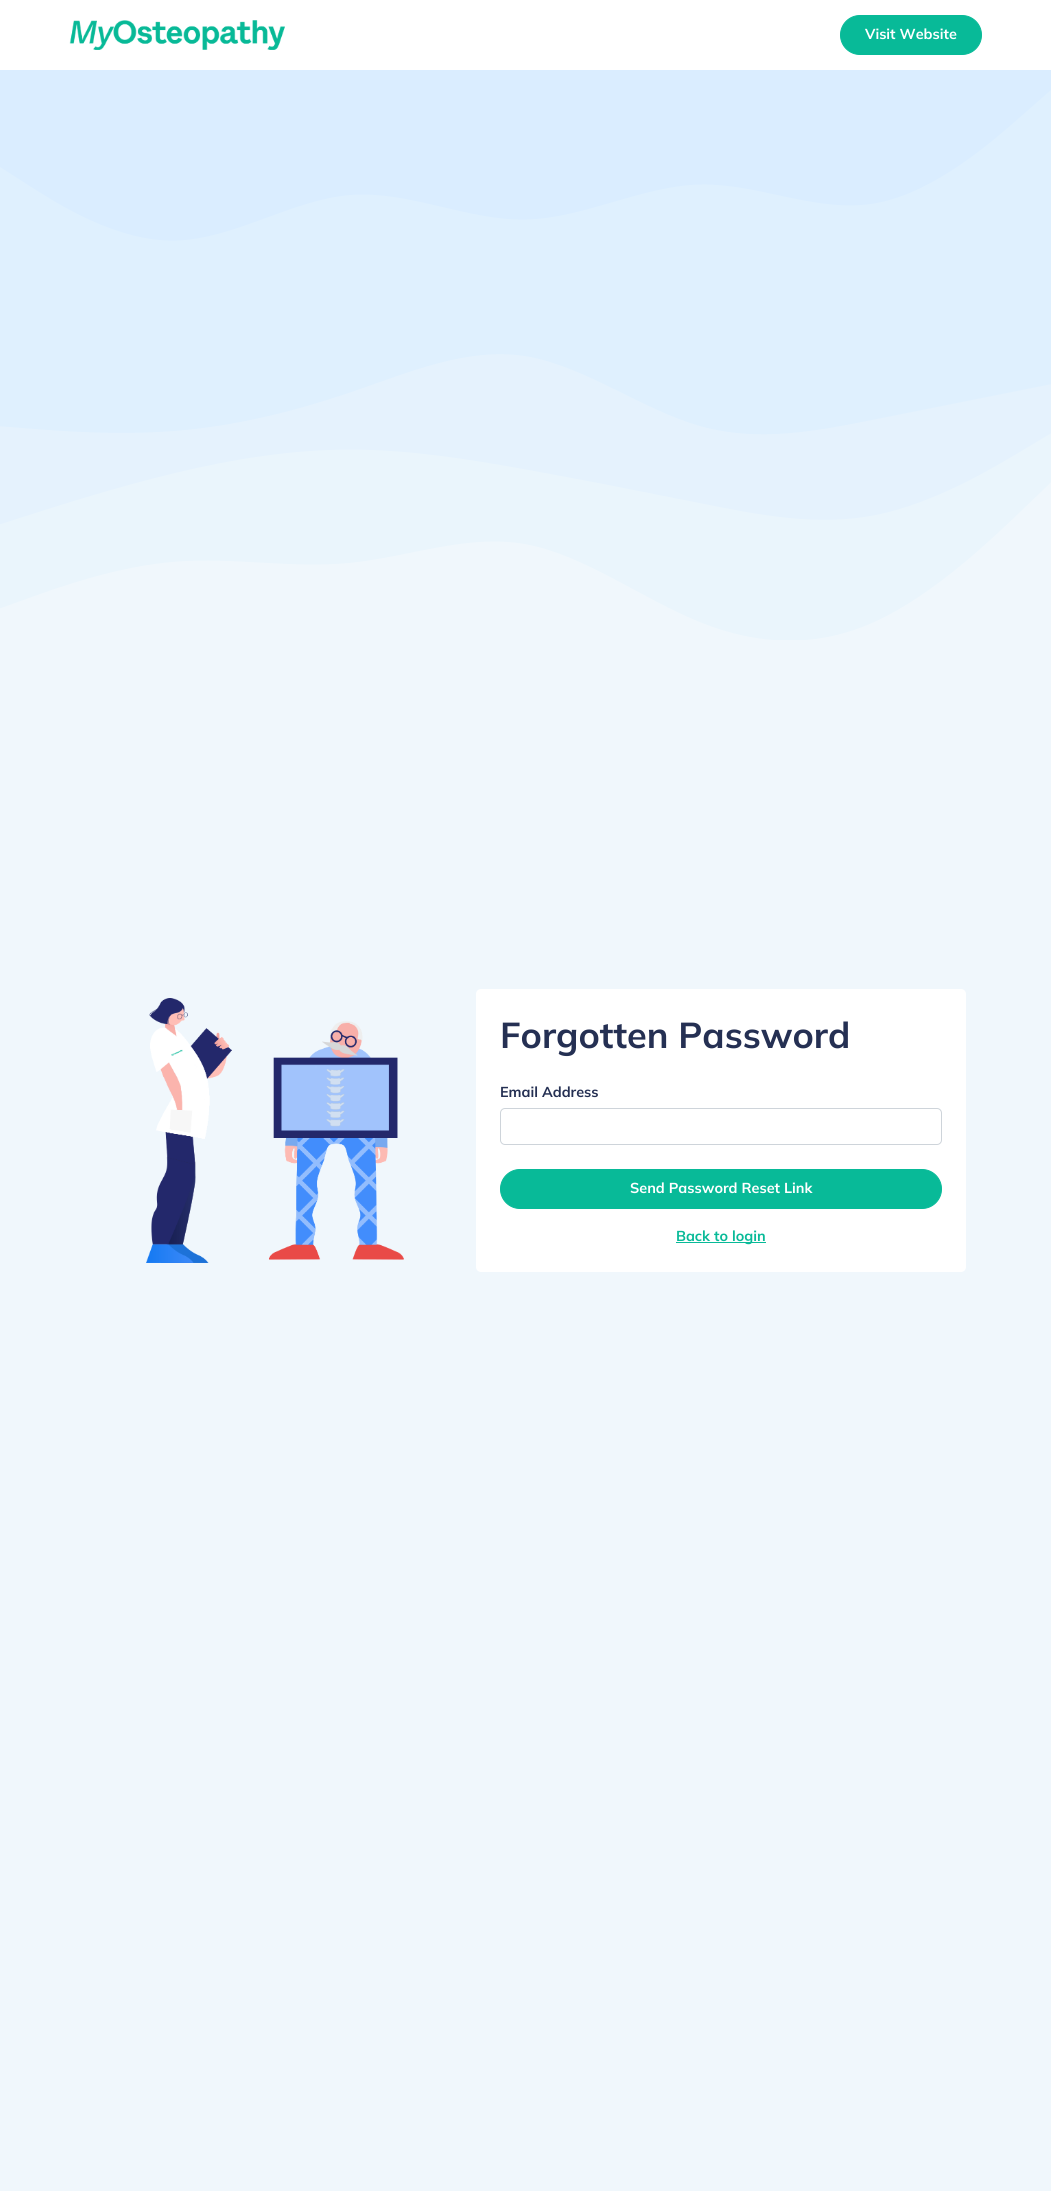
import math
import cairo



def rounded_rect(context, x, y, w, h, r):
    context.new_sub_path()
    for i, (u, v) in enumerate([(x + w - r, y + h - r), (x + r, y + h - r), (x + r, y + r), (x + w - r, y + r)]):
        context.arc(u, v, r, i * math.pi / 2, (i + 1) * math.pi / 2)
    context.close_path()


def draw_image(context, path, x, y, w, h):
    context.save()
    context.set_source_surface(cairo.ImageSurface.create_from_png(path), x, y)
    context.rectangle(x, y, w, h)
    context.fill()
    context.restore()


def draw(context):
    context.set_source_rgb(240 / 255, 247 / 255, 252 / 255)
    context.paint()
    draw_image(context, "images/1.png", 0, 70, 1051, 570)
    context.set_source_rgb(1, 1, 1)
    context.rectangle(0, 0, 1051, 70)
    context.fill()
    draw_image(context, "images/2.png", 69, 20, 216, 30)
    context.set_source_rgb(8 / 255, 186 / 255, 152 / 255)
    rounded_rect(context, 840.5, 15.5, 141, 39, 19.5)
    context.fill_preserve()
    context.set_line_width(1)
    context.stroke()
    draw_image(context, "images/3.png", 146, 998, 258, 265)
    context.set_source_rgb(1, 1, 1)
    rounded_rect(context, 476, 989, 490, 283, 5)
    context.fill()
    rounded_rect(context, 500.5, 1108.5, 441, 36, 4.5)
    context.set_source_rgb(206 / 255, 212 / 255, 218 / 255)
    context.stroke()
    context.set_source_rgb(8 / 255, 186 / 255, 152 / 255)
    rounded_rect(context, 500.5, 1169.5, 441, 39, 19.5)
    context.fill_preserve()
    context.stroke()
    context.rectangle(676, 1242, 90, 1)
    context.fill()
    context.select_font_face("Mulish", cairo.FontSlant.NORMAL, cairo.FontWeight.BOLD)
    context.set_font_size(14.4)
    context.set_source_rgb(1, 1, 1)
    context.move_to(865, 39)
    context.show_text("Visit Website")
    context.set_font_size(36)
    context.set_source_rgb(37 / 255, 48 / 255, 83 / 255)
    context.move_to(500, 1048)
    context.show_text("Forgotten Password")
    context.set_font_size(14.4)
    context.move_to(500, 1097)
    context.show_text("Email Address")
    context.set_source_rgb(1, 1, 1)
    context.move_to(630, 1193)
    context.show_text("Send Password Reset Link")
    context.set_source_rgb(8 / 255, 186 / 255, 152 / 255)
    context.move_to(676, 1241)
    context.show_text("Back to login")


surface = cairo.ImageSurface(cairo.Format.RGB24, 1051, 2191)
context = cairo.Context(surface)
options = cairo.FontOptions()
options.set_hint_metrics(cairo.HintMetrics.OFF)
options.set_hint_style(cairo.HintStyle.NONE)
context.set_font_options(options)
context.set_miter_limit(4)
draw(context)
surface.write_to_png("out.png")
